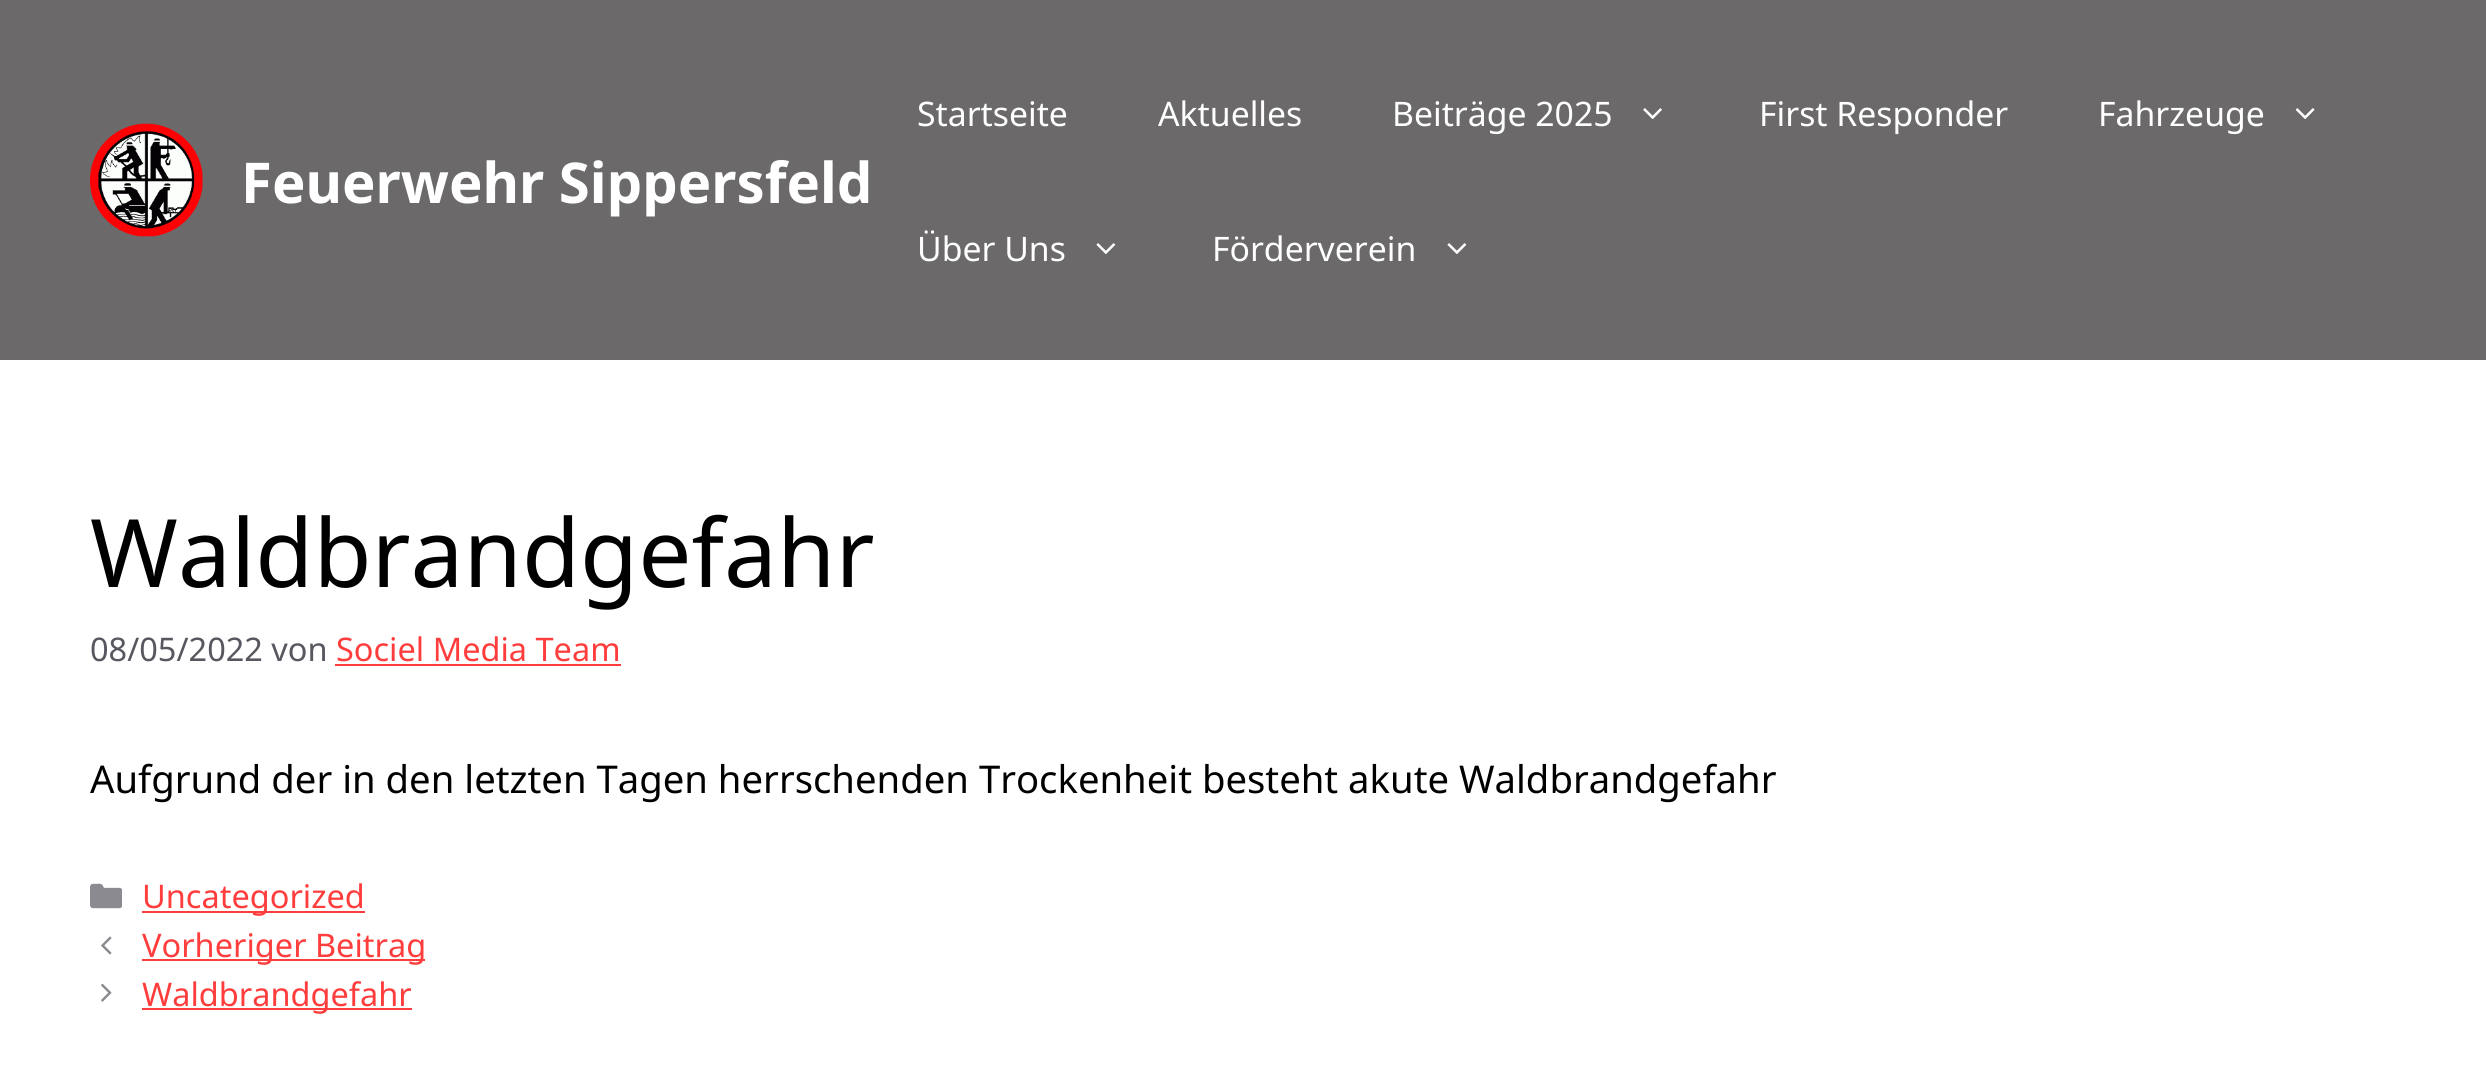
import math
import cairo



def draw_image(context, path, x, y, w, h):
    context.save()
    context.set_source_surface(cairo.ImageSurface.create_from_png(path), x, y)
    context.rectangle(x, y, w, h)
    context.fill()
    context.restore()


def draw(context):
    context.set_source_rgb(1, 1, 1)
    context.paint()
    context.set_source_rgb(107 / 255, 105 / 255, 105 / 255)
    context.rectangle(0, 0, 2486, 360)
    context.fill()
    draw_image(context, "images/1.png", 90, 123, 113, 114)
    draw_image(context, "images/2.png", 1643, 108, 19, 11)
    draw_image(context, "images/3.png", 2295, 108, 20, 11)
    draw_image(context, "images/4.png", 1096, 243, 20, 11)
    draw_image(context, "images/4.png", 1447, 243, 20, 11)
    context.set_source_rgb(1, 61 / 255, 61 / 255)
    context.rectangle(335, 664, 286, 2)
    context.fill()
    draw_image(context, "images/5.png", 90, 883, 32, 26)
    context.rectangle(142, 911, 223, 2)
    context.fill()
    draw_image(context, "images/6.png", 101, 936, 11, 19)
    context.rectangle(142, 959, 283, 2)
    context.fill()
    draw_image(context, "images/7.png", 101, 983, 11, 19)
    context.rectangle(142, 1008, 270, 2)
    context.fill()
    context.select_font_face("Noto Sans", cairo.FontSlant.NORMAL, cairo.FontWeight.BOLD)
    context.set_font_size(56.25)
    context.set_source_rgb(1, 1, 1)
    context.move_to(241, 203)
    context.show_text("Feuerwehr Sippersfeld")
    context.select_font_face("Noto Sans")
    context.set_font_size(33.75)
    context.move_to(917, 126)
    context.show_text("Startseite")
    context.move_to(1158, 126)
    context.show_text("Aktuelles")
    context.move_to(1392, 126)
    context.show_text("Beiträge 2025")
    context.move_to(1759, 126)
    context.show_text("First Responder")
    context.move_to(2098, 126)
    context.show_text("Fahrzeuge")
    context.move_to(917, 261)
    context.show_text("Über Uns")
    context.move_to(1212, 261)
    context.show_text("Förderverein")
    context.set_font_size(94.5)
    context.set_source_rgb(0, 0, 0)
    context.move_to(90, 587)
    context.show_text("Waldbrandgefahr")
    context.set_font_size(32.5)
    context.set_source_rgb(87 / 255, 87 / 255, 96 / 255)
    context.move_to(90, 661)
    context.show_text("08/05/2022 von")
    context.set_source_rgb(1, 61 / 255, 61 / 255)
    context.move_to(336, 661)
    context.show_text("Sociel Media Team")
    context.set_font_size(38.25)
    context.set_source_rgb(0, 0, 0)
    context.move_to(90, 793)
    context.show_text("Aufgrund der in den letzten Tagen herrschenden Trockenheit besteht akute Waldbrandgefahr")
    context.set_font_size(32.5)
    context.set_source_rgb(1, 61 / 255, 61 / 255)
    context.move_to(142, 908)
    context.show_text("Uncategorized")
    context.move_to(142, 957)
    context.show_text("Vorheriger Beitrag")
    context.move_to(142, 1006)
    context.show_text("Waldbrandgefahr")


surface = cairo.ImageSurface(cairo.Format.RGB24, 2486, 1071)
context = cairo.Context(surface)
options = cairo.FontOptions()
options.set_hint_metrics(cairo.HintMetrics.OFF)
options.set_hint_style(cairo.HintStyle.NONE)
context.set_font_options(options)
context.set_miter_limit(4)
draw(context)
surface.write_to_png("out.png")
